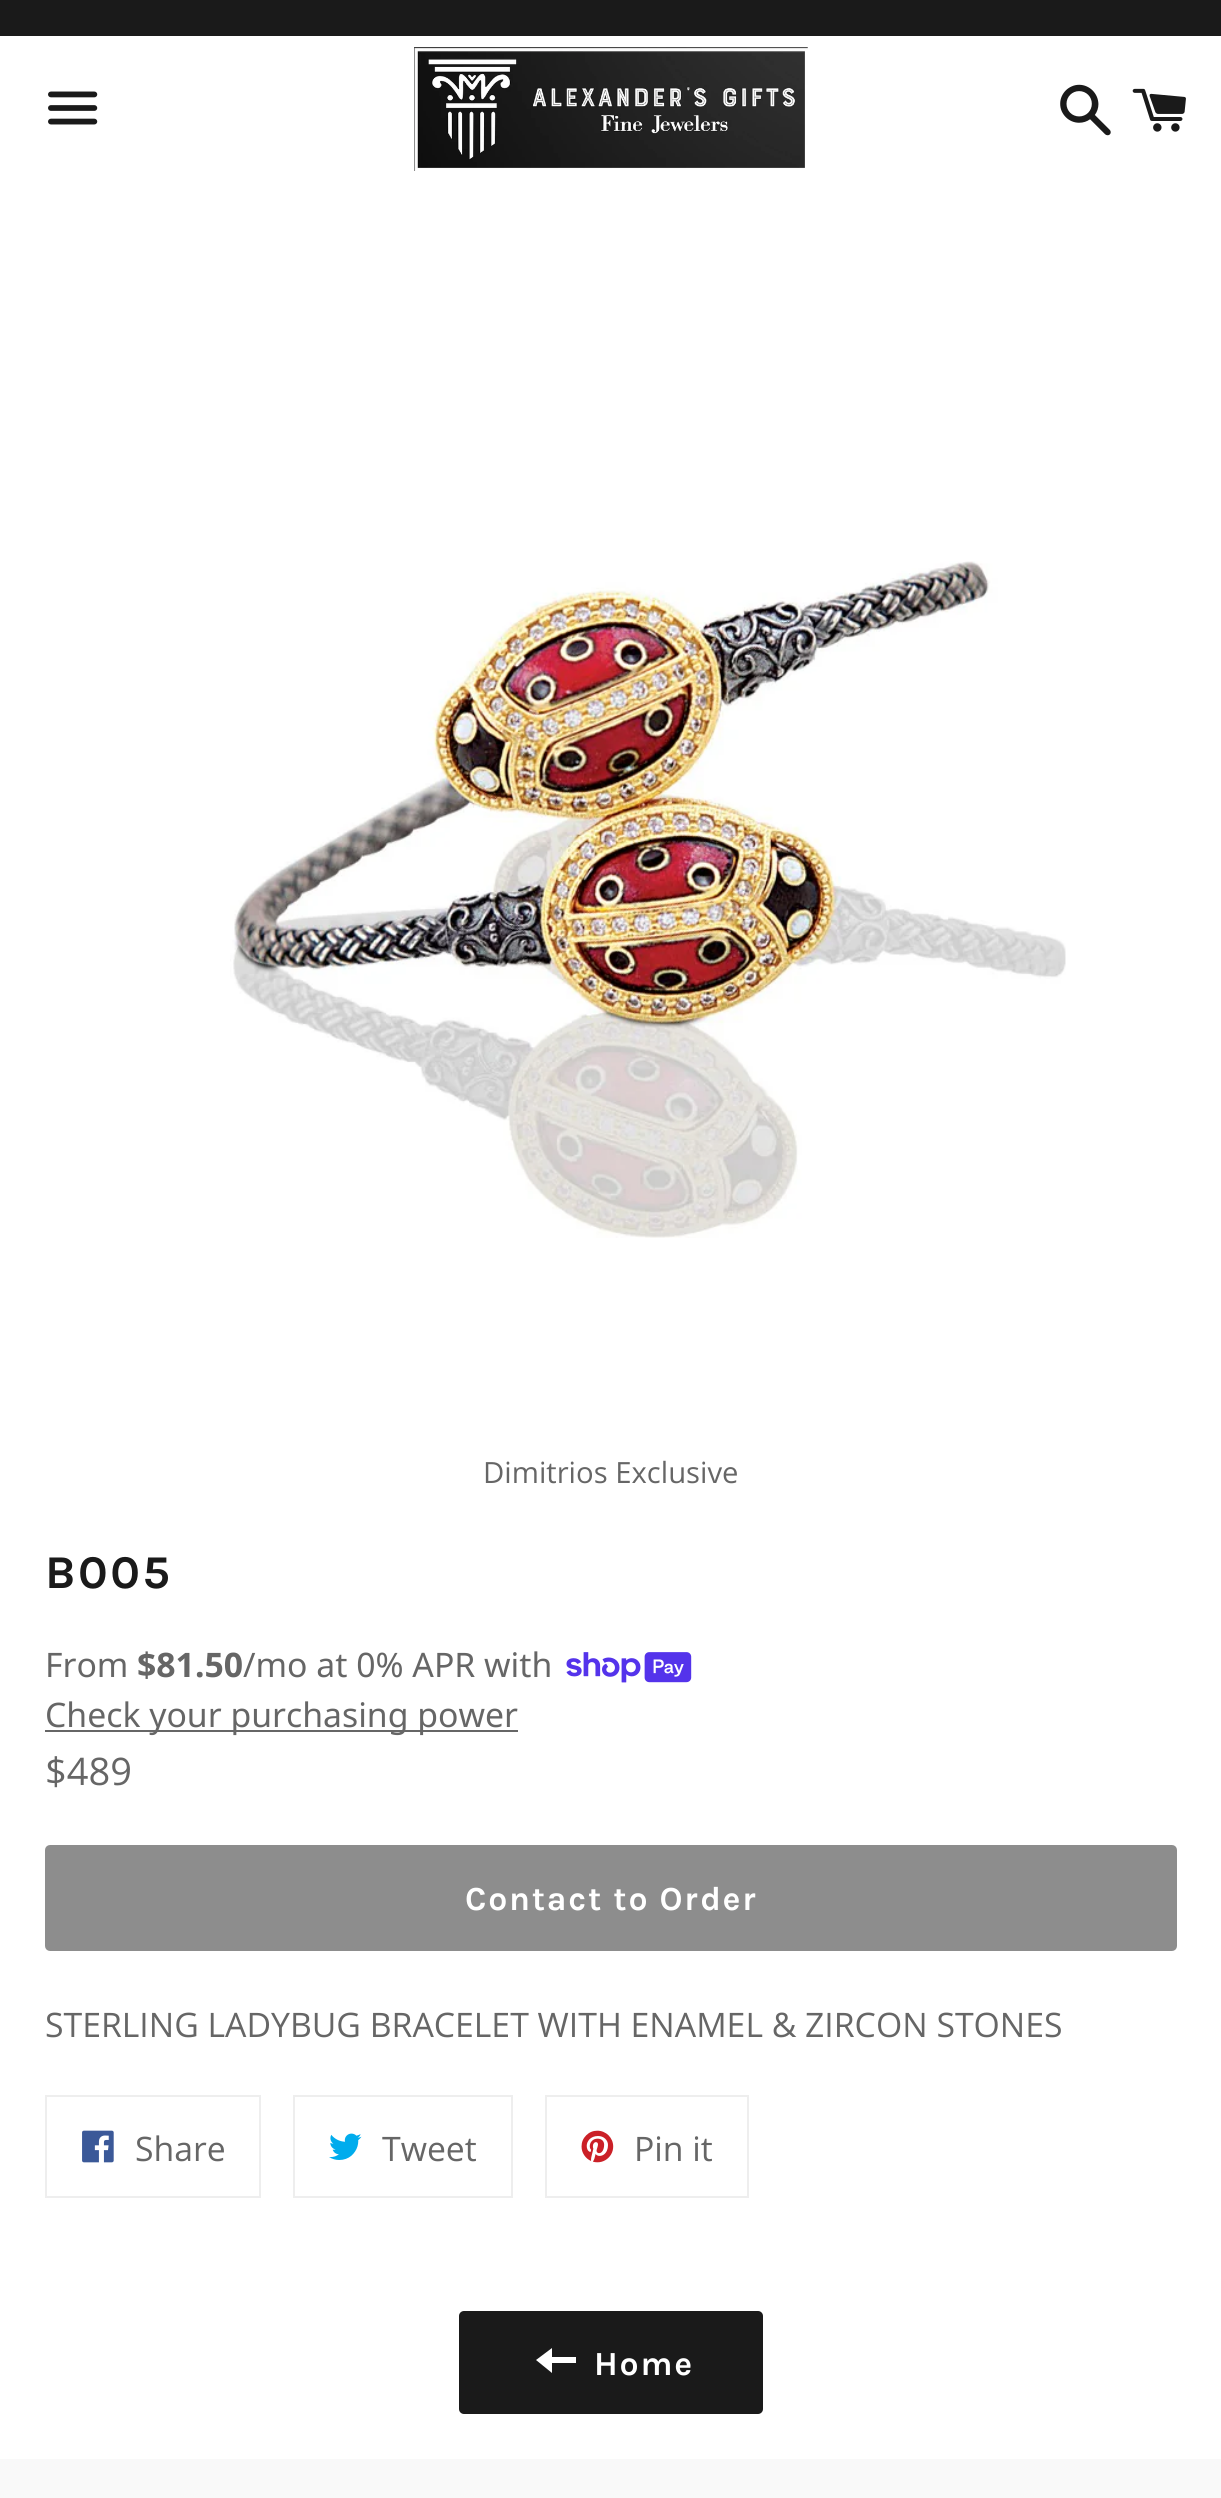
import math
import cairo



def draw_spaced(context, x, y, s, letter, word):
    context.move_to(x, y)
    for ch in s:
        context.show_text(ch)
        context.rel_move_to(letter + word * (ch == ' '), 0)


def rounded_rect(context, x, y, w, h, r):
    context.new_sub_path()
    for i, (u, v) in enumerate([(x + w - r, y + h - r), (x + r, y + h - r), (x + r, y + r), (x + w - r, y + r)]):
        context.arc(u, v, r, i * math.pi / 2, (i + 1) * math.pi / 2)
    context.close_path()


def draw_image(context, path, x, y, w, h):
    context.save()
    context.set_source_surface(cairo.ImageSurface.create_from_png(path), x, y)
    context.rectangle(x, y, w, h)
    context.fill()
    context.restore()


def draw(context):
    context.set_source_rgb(1, 1, 1)
    context.paint()
    context.set_source_rgb(26 / 255, 26 / 255, 26 / 255)
    context.rectangle(0, 0, 1221, 36)
    context.fill()
    draw_image(context, "images/1.png", 48, 91, 50, 34)
    draw_image(context, "images/2.png", 414, 47, 394, 124)
    draw_image(context, "images/3.png", 1060, 84, 51, 52)
    draw_image(context, "images/4.png", 1132, 88, 54, 44)
    draw_image(context, "images/5.png", 230, 561, 836, 677)
    draw_image(context, "images/6.png", 566, 1652, 126, 31)
    context.set_source_rgb(102 / 255, 102 / 255, 102 / 255)
    context.rectangle(45, 1730, 473, 2)
    context.fill()
    context.set_source_rgb(141 / 255, 141 / 255, 141 / 255)
    rounded_rect(context, 47.5, 1847.5, 1127, 101, 2.5)
    context.fill_preserve()
    context.set_line_width(5)
    context.stroke()
    context.rectangle(46, 2096, 214, 101)
    context.set_source_rgb(238 / 255, 238 / 255, 238 / 255)
    context.set_line_width(2)
    context.stroke()
    draw_image(context, "images/7.png", 82, 2130, 32, 33)
    context.rectangle(294, 2096, 218, 101)
    context.stroke()
    draw_image(context, "images/8.png", 329, 2133, 33, 27)
    context.rectangle(546, 2096, 202, 101)
    context.stroke()
    draw_image(context, "images/9.png", 581, 2130, 33, 33)
    context.set_source_rgb(26 / 255, 26 / 255, 26 / 255)
    rounded_rect(context, 459, 2311, 304, 103, 5)
    context.fill()
    context.set_source_rgb(1, 1, 1)
    context.new_path()
    context.move_to(552, 2357)
    context.line_to(552, 2348)
    context.line_to(536, 2360)
    context.line_to(552, 2373)
    context.line_to(552, 2363)
    context.line_to(576, 2363)
    context.line_to(576, 2357)
    context.close_path()
    context.fill()
    context.set_source_rgb(249 / 255, 249 / 255, 249 / 255)
    context.rectangle(0, 2459, 1221, 39)
    context.fill()
    context.select_font_face("Open Sans")
    context.set_font_size(29.25)
    context.set_source_rgb(102 / 255, 102 / 255, 102 / 255)
    context.move_to(483, 1483)
    context.show_text("Dimitrios Exclusive")
    context.select_font_face("Karla", cairo.FontSlant.NORMAL, cairo.FontWeight.BOLD)
    context.set_font_size(47)
    context.set_source_rgb(26 / 255, 26 / 255, 26 / 255)
    draw_spaced(context, 45, 1588, "B005", 2.5, 0)
    context.select_font_face("Noto Sans")
    context.set_font_size(33.75)
    context.set_source_rgb(102 / 255, 102 / 255, 102 / 255)
    context.move_to(45, 1677)
    context.show_text("From")
    context.select_font_face("Noto Sans", cairo.FontSlant.NORMAL, cairo.FontWeight.BOLD)
    context.move_to(137, 1677)
    context.show_text("$81.50")
    context.select_font_face("Noto Sans")
    context.move_to(243, 1677)
    context.show_text("/mo at 0% APR with")
    context.move_to(45, 1727)
    context.show_text("Check your purchasing power")
    context.select_font_face("Open Sans")
    context.set_font_size(38)
    context.move_to(45, 1785)
    context.show_text("$489")
    context.select_font_face("Karla", cairo.FontSlant.NORMAL, cairo.FontWeight.BOLD)
    context.set_font_size(33.75)
    context.set_source_rgb(1, 1, 1)
    draw_spaced(context, 465, 1910, "Contact to Order", 1.75, 0)
    context.select_font_face("Open Sans")
    context.set_source_rgb(102 / 255, 102 / 255, 102 / 255)
    context.move_to(45, 2037)
    context.show_text("STERLING LADYBUG BRACELET WITH ENAMEL & ZIRCON STONES")
    context.move_to(135, 2161)
    context.show_text("Share")
    context.move_to(382, 2161)
    context.show_text("Tweet")
    context.move_to(634, 2161)
    context.show_text("Pin it")
    context.select_font_face("Karla", cairo.FontSlant.NORMAL, cairo.FontWeight.BOLD)
    context.set_source_rgb(1, 1, 1)
    draw_spaced(context, 594, 2375, "Home", 1.75, 0)


surface = cairo.ImageSurface(cairo.Format.RGB24, 1221, 2498)
context = cairo.Context(surface)
options = cairo.FontOptions()
options.set_hint_metrics(cairo.HintMetrics.OFF)
options.set_hint_style(cairo.HintStyle.NONE)
context.set_font_options(options)
context.set_miter_limit(4)
draw(context)
surface.write_to_png("out.png")
